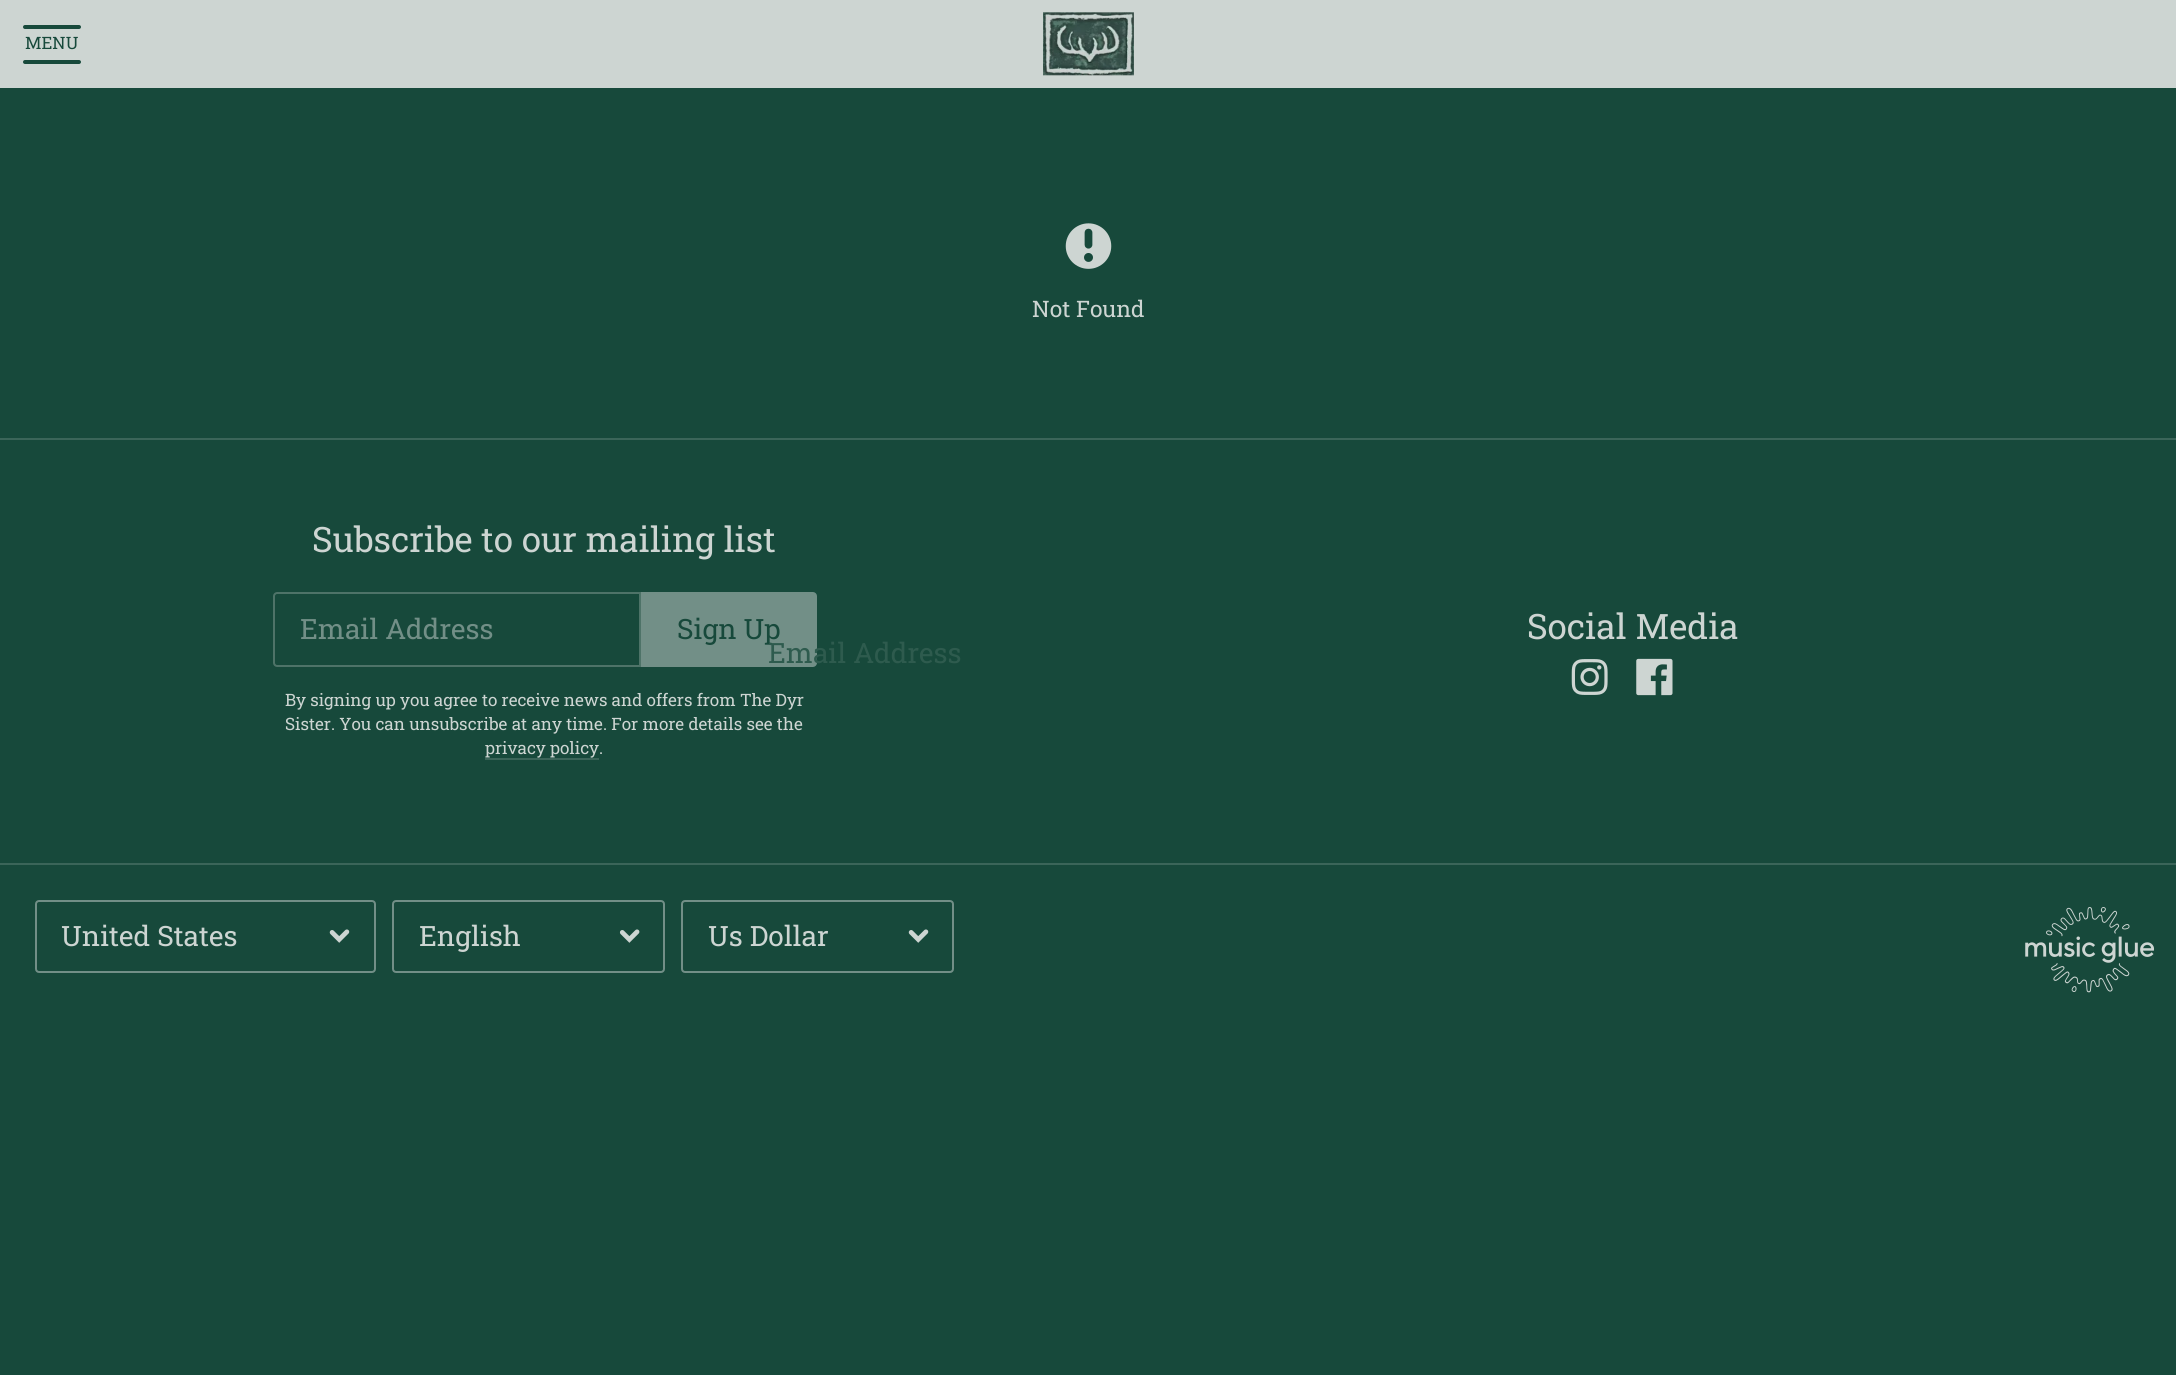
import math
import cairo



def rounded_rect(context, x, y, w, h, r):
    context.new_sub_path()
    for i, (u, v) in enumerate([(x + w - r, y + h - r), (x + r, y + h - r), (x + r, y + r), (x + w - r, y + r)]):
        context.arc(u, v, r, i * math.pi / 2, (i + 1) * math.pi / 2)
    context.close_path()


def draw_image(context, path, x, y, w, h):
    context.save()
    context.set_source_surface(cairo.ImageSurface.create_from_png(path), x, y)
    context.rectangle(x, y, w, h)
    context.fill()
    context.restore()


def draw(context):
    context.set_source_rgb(23 / 255, 73 / 255, 59 / 255)
    context.paint()
    context.set_source_rgb(205 / 255, 213 / 255, 210 / 255)
    context.rectangle(0, 0, 2176, 88)
    context.fill()
    context.set_source_rgb(23 / 255, 73 / 255, 59 / 255)
    rounded_rect(context, 23, 25, 58, 4, 2)
    context.fill()
    rounded_rect(context, 23, 60, 58, 4, 2)
    context.fill()
    draw_image(context, "images/1.png", 1043, 12, 91, 64)
    draw_image(context, "images/2.png", 1065, 223, 47, 46)
    context.set_source_rgb(59 / 255, 101 / 255, 89 / 255)
    context.rectangle(0, 438, 2176, 2)
    context.fill()
    context.new_path()
    context.move_to(277, 593)
    context.line_to(640, 593)
    context.line_to(640, 666)
    context.line_to(277, 666)
    context.curve_to(275.5, 666, 274, 664.5, 274, 663)
    context.line_to(274, 596)
    context.curve_to(274, 594.5, 275.5, 593, 277, 593)
    context.close_path()
    context.set_source_rgb(78 / 255, 115 / 255, 104 / 255)
    context.stroke()
    context.set_source_rgb(114 / 255, 143 / 255, 135 / 255)
    context.new_path()
    context.move_to(642, 593)
    context.line_to(813, 593)
    context.curve_to(814.5, 593, 816, 594.5, 816, 596)
    context.line_to(816, 663)
    context.curve_to(816, 664.5, 814.5, 666, 813, 666)
    context.line_to(642, 666)
    context.close_path()
    context.fill_preserve()
    context.stroke()
    context.set_source_rgb(59 / 255, 101 / 255, 89 / 255)
    context.rectangle(485, 758, 114, 2)
    context.fill()
    draw_image(context, "images/3.png", 1571, 659, 37, 36)
    draw_image(context, "images/4.png", 1636, 658, 37, 38)
    context.rectangle(0, 863, 2176, 2)
    context.fill()
    rounded_rect(context, 36, 901, 339, 71, 3)
    context.set_source_rgb(114 / 255, 143 / 255, 135 / 255)
    context.stroke()
    draw_image(context, "images/5.png", 329, 929, 21, 14)
    rounded_rect(context, 393, 901, 271, 71, 3)
    context.stroke()
    draw_image(context, "images/6.png", 619, 929, 21, 14)
    rounded_rect(context, 682, 901, 271, 71, 3)
    context.stroke()
    draw_image(context, "images/7.png", 908, 929, 21, 14)
    draw_image(context, "images/8.png", 2025, 907, 129, 86)
    context.select_font_face("Roboto Slab")
    context.set_font_size(17.05)
    context.set_source_rgb(23 / 255, 73 / 255, 59 / 255)
    context.move_to(25, 49)
    context.show_text("MENU")
    context.set_font_size(22.75)
    context.set_source_rgb(205 / 255, 213 / 255, 210 / 255)
    context.move_to(1032, 317)
    context.show_text("Not Found")
    context.set_font_size(35)
    context.move_to(312, 552)
    context.show_text("Subscribe to our mailing list")
    context.set_font_size(28)
    context.set_source_rgb(114 / 255, 143 / 255, 135 / 255)
    context.move_to(300, 639)
    context.show_text("Email Address")
    context.set_source_rgb(23 / 255, 73 / 255, 59 / 255)
    context.move_to(677, 639)
    context.show_text("Sign Up")
    context.set_font_size(17.05)
    context.set_source_rgb(205 / 255, 213 / 255, 210 / 255)
    context.move_to(285, 706)
    context.show_text("By signing up you agree to receive news and offers from The Dyr")
    context.move_to(285, 730)
    context.show_text("Sister. You can unsubscribe at any time. For more details see the")
    context.move_to(485, 754)
    context.show_text("privacy policy.")
    context.set_font_size(35)
    context.move_to(1527, 639)
    context.show_text("Social Media")
    context.set_font_size(28)
    context.move_to(61, 946)
    context.show_text("United States")
    context.move_to(419, 946)
    context.show_text("English")
    context.move_to(708, 946)
    context.show_text("Us Dollar")
    context.set_source_rgb(46 / 255, 91 / 255, 78 / 255)
    context.move_to(768, 663)
    context.show_text("Email Address")


surface = cairo.ImageSurface(cairo.Format.RGB24, 2176, 1375)
context = cairo.Context(surface)
options = cairo.FontOptions()
options.set_hint_metrics(cairo.HintMetrics.OFF)
options.set_hint_style(cairo.HintStyle.NONE)
context.set_font_options(options)
context.set_miter_limit(4)
draw(context)
surface.write_to_png("out.png")
